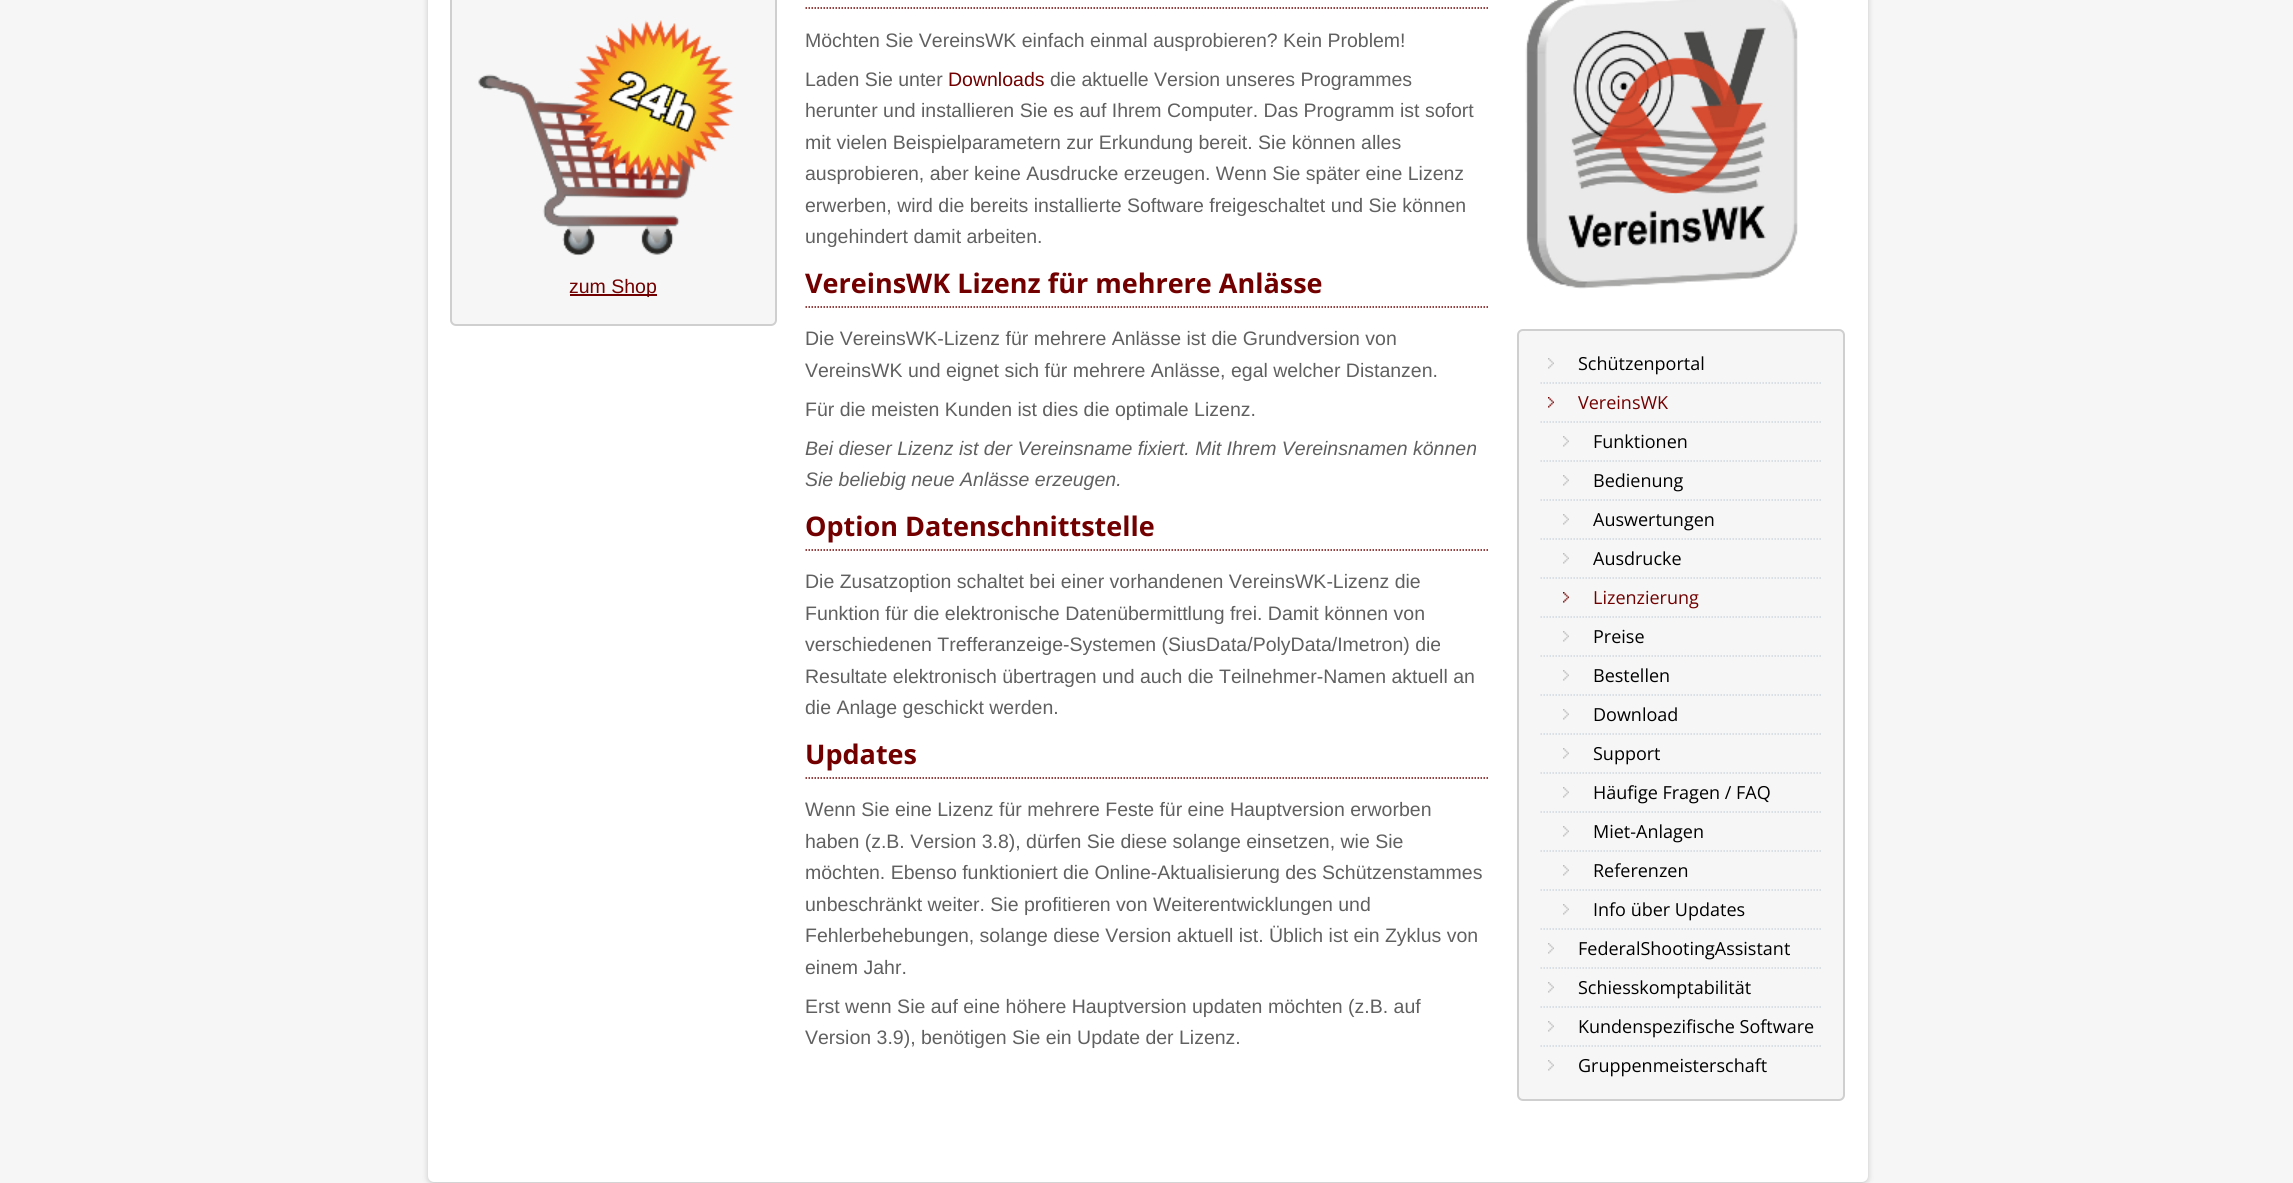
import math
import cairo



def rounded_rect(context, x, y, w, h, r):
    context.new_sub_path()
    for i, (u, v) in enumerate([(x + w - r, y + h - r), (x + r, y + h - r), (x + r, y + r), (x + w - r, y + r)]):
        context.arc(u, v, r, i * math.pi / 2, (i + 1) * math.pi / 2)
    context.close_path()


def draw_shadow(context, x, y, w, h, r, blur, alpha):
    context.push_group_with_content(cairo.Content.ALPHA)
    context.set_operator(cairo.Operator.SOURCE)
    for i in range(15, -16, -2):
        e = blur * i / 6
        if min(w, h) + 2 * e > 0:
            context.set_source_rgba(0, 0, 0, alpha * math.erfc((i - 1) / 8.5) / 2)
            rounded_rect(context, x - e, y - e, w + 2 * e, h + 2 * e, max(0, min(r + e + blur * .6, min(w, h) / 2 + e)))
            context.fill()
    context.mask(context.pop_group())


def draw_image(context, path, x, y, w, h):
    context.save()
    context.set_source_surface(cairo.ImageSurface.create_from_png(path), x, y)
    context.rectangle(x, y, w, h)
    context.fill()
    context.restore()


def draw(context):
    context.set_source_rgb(246 / 255, 246 / 255, 246 / 255)
    context.paint()
    context.set_source_rgb(0, 0, 0)
    draw_shadow(context, 428, -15, 1440, 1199, 6, 3, 0.2)
    context.set_source_rgb(1, 1, 1)
    rounded_rect(context, 428, -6, 1440, 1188, 6)
    context.fill()
    context.set_source_rgb(246 / 255, 246 / 255, 246 / 255)
    rounded_rect(context, 451, -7, 325, 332, 5)
    context.fill_preserve()
    context.set_source_rgb(207 / 255, 207 / 255, 207 / 255)
    context.stroke()
    draw_image(context, "images/1.png", 478, 20, 256, 236)
    context.set_source_rgb(114 / 255, 0, 0)
    context.rectangle(570, 294, 87, 2)
    context.fill()
    context.new_path()
    context.move_to(805.5, 8)
    context.line_to(1488, 8)
    context.set_line_width(1.5)
    context.set_dash([1.5, 1.5])
    context.stroke()
    context.new_path()
    context.move_to(805.5, 307)
    context.line_to(1488, 307)
    context.stroke()
    context.new_path()
    context.move_to(805.5, 550)
    context.line_to(1488, 550)
    context.stroke()
    context.new_path()
    context.move_to(805.5, 778)
    context.line_to(1488, 778)
    context.stroke()
    draw_image(context, "images/2.png", 1525, 0, 273, 289)
    context.set_source_rgb(246 / 255, 246 / 255, 246 / 255)
    rounded_rect(context, 1518, 330, 326, 770, 5)
    context.fill_preserve()
    context.set_source_rgb(207 / 255, 207 / 255, 207 / 255)
    context.set_line_width(2)
    context.set_dash([])
    context.stroke()
    context.new_path()
    context.move_to(1540.5, 383)
    context.line_to(1821, 383)
    context.set_source_rgb(206 / 255, 216 / 255, 223 / 255)
    context.set_line_width(1.5)
    context.set_dash([1.5, 1.5])
    context.stroke()
    draw_image(context, "images/3.png", 1548, 358, 6, 11)
    context.new_path()
    context.move_to(1540.5, 929)
    context.line_to(1821, 929)
    context.stroke()
    draw_image(context, "images/4.png", 1548, 397, 6, 11)
    context.new_path()
    context.move_to(1540.5, 422)
    context.line_to(1821, 422)
    context.stroke()
    context.new_path()
    context.move_to(1540.5, 461)
    context.line_to(1821, 461)
    context.stroke()
    draw_image(context, "images/3.png", 1563, 436, 6, 11)
    context.new_path()
    context.move_to(1540.5, 500)
    context.line_to(1821, 500)
    context.stroke()
    draw_image(context, "images/3.png", 1563, 475, 6, 11)
    context.new_path()
    context.move_to(1540.5, 539)
    context.line_to(1821, 539)
    context.stroke()
    draw_image(context, "images/3.png", 1563, 514, 6, 11)
    context.new_path()
    context.move_to(1540.5, 578)
    context.line_to(1821, 578)
    context.stroke()
    draw_image(context, "images/3.png", 1563, 553, 6, 11)
    context.new_path()
    context.move_to(1540.5, 617)
    context.line_to(1821, 617)
    context.stroke()
    draw_image(context, "images/4.png", 1563, 592, 6, 11)
    context.new_path()
    context.move_to(1540.5, 656)
    context.line_to(1821, 656)
    context.stroke()
    draw_image(context, "images/3.png", 1563, 631, 6, 11)
    context.new_path()
    context.move_to(1540.5, 695)
    context.line_to(1821, 695)
    context.stroke()
    draw_image(context, "images/3.png", 1563, 670, 6, 11)
    context.new_path()
    context.move_to(1540.5, 734)
    context.line_to(1821, 734)
    context.stroke()
    draw_image(context, "images/3.png", 1563, 709, 6, 11)
    context.new_path()
    context.move_to(1540.5, 773)
    context.line_to(1821, 773)
    context.stroke()
    draw_image(context, "images/3.png", 1563, 748, 6, 11)
    context.new_path()
    context.move_to(1540.5, 812)
    context.line_to(1821, 812)
    context.stroke()
    draw_image(context, "images/3.png", 1563, 787, 6, 11)
    context.new_path()
    context.move_to(1540.5, 851)
    context.line_to(1821, 851)
    context.stroke()
    draw_image(context, "images/3.png", 1563, 826, 6, 11)
    context.new_path()
    context.move_to(1540.5, 890)
    context.line_to(1821, 890)
    context.stroke()
    draw_image(context, "images/3.png", 1563, 865, 6, 11)
    draw_image(context, "images/3.png", 1563, 904, 6, 11)
    context.new_path()
    context.move_to(1540.5, 968)
    context.line_to(1821, 968)
    context.stroke()
    draw_image(context, "images/3.png", 1548, 943, 6, 11)
    context.new_path()
    context.move_to(1540.5, 1007)
    context.line_to(1821, 1007)
    context.stroke()
    draw_image(context, "images/3.png", 1548, 982, 6, 11)
    context.new_path()
    context.move_to(1540.5, 1046)
    context.line_to(1821, 1046)
    context.stroke()
    draw_image(context, "images/3.png", 1548, 1021, 6, 11)
    draw_image(context, "images/3.png", 1548, 1060, 6, 11)
    context.select_font_face("Liberation Sans")
    context.set_font_size(19.5)
    context.set_source_rgb(114 / 255, 0, 0)
    context.move_to(569, 293)
    context.show_text("zum Shop")
    context.set_source_rgb(96 / 255, 96 / 255, 96 / 255)
    context.move_to(805, 47)
    context.show_text("Möchten Sie VereinsWK einfach einmal ausprobieren? Kein Problem!")
    context.move_to(805, 86)
    context.show_text("Laden Sie unter")
    context.set_source_rgb(114 / 255, 0, 0)
    context.move_to(948, 86)
    context.show_text("Downloads")
    context.set_source_rgb(96 / 255, 96 / 255, 96 / 255)
    context.move_to(1050, 86)
    context.show_text("die aktuelle Version unseres Programmes")
    context.move_to(805, 117)
    context.show_text("herunter und installieren Sie es auf Ihrem Computer. Das Programm ist sofort")
    context.move_to(805, 149)
    context.show_text("mit vielen Beispielparametern zur Erkundung bereit. Sie können alles")
    context.move_to(805, 180)
    context.show_text("ausprobieren, aber keine Ausdrucke erzeugen. Wenn Sie später eine Lizenz")
    context.move_to(805, 212)
    context.show_text("erwerben, wird die bereits installierte Software freigeschaltet und Sie können")
    context.move_to(805, 243)
    context.show_text("ungehindert damit arbeiten.")
    context.select_font_face("Open Sans", cairo.FontSlant.NORMAL, cairo.FontWeight.BOLD)
    context.set_font_size(27)
    context.set_source_rgb(114 / 255, 0, 0)
    context.move_to(805, 293)
    context.show_text("VereinsWK Lizenz für mehrere Anlässe")
    context.select_font_face("Liberation Sans")
    context.set_font_size(19.5)
    context.set_source_rgb(96 / 255, 96 / 255, 96 / 255)
    context.move_to(805, 345)
    context.show_text("Die VereinsWK-Lizenz für mehrere Anlässe ist die Grundversion von")
    context.move_to(805, 377)
    context.show_text("VereinsWK und eignet sich für mehrere Anlässe, egal welcher Distanzen.")
    context.move_to(805, 416)
    context.show_text("Für die meisten Kunden ist dies die optimale Lizenz.")
    context.select_font_face("Liberation Sans", cairo.FontSlant.ITALIC)
    context.move_to(805, 455)
    context.show_text("Bei dieser Lizenz ist der Vereinsname fixiert. Mit Ihrem Vereinsnamen können")
    context.move_to(805, 486)
    context.show_text("Sie beliebig neue Anlässe erzeugen.")
    context.select_font_face("Open Sans", cairo.FontSlant.NORMAL, cairo.FontWeight.BOLD)
    context.set_font_size(27)
    context.set_source_rgb(114 / 255, 0, 0)
    context.move_to(805, 536)
    context.show_text("Option Datenschnittstelle")
    context.select_font_face("Liberation Sans")
    context.set_font_size(19.5)
    context.set_source_rgb(96 / 255, 96 / 255, 96 / 255)
    context.move_to(805, 588)
    context.show_text("Die Zusatzoption schaltet bei einer vorhandenen VereinsWK-Lizenz die")
    context.move_to(805, 620)
    context.show_text("Funktion für die elektronische Datenübermittlung frei. Damit können von")
    context.move_to(805, 651)
    context.show_text("verschiedenen Trefferanzeige-Systemen (SiusData/PolyData/Imetron) die")
    context.move_to(805, 683)
    context.show_text("Resultate elektronisch übertragen und auch die Teilnehmer-Namen aktuell an")
    context.move_to(805, 714)
    context.show_text("die Anlage geschickt werden.")
    context.select_font_face("Open Sans", cairo.FontSlant.NORMAL, cairo.FontWeight.BOLD)
    context.set_font_size(27)
    context.set_source_rgb(114 / 255, 0, 0)
    context.move_to(805, 764)
    context.show_text("Updates")
    context.select_font_face("Liberation Sans")
    context.set_font_size(19.5)
    context.set_source_rgb(96 / 255, 96 / 255, 96 / 255)
    context.move_to(805, 816)
    context.show_text("Wenn Sie eine Lizenz für mehrere Feste für eine Hauptversion erworben")
    context.move_to(805, 848)
    context.show_text("haben (z.B. Version 3.8), dürfen Sie diese solange einsetzen, wie Sie")
    context.move_to(805, 879)
    context.show_text("möchten. Ebenso funktioniert die Online-Aktualisierung des Schützenstammes")
    context.move_to(805, 911)
    context.show_text("unbeschränkt weiter. Sie profitieren von Weiterentwicklungen und")
    context.move_to(805, 942)
    context.show_text("Fehlerbehebungen, solange diese Version aktuell ist. Üblich ist ein Zyklus von")
    context.move_to(805, 974)
    context.show_text("einem Jahr.")
    context.move_to(805, 1013)
    context.show_text("Erst wenn Sie auf eine höhere Hauptversion updaten möchten (z.B. auf")
    context.move_to(805, 1044)
    context.show_text("Version 3.9), benötigen Sie ein Update der Lizenz.")
    context.select_font_face("Open Sans")
    context.set_font_size(18)
    context.set_source_rgb(0, 0, 0)
    context.move_to(1578, 370)
    context.show_text("Schützenportal")
    context.set_source_rgb(114 / 255, 0, 0)
    context.move_to(1578, 409)
    context.show_text("VereinsWK")
    context.set_source_rgb(0, 0, 0)
    context.move_to(1593, 448)
    context.show_text("Funktionen")
    context.move_to(1593, 487)
    context.show_text("Bedienung")
    context.move_to(1593, 526)
    context.show_text("Auswertungen")
    context.move_to(1593, 565)
    context.show_text("Ausdrucke")
    context.set_source_rgb(114 / 255, 0, 0)
    context.move_to(1593, 604)
    context.show_text("Lizenzierung")
    context.set_source_rgb(0, 0, 0)
    context.move_to(1593, 643)
    context.show_text("Preise")
    context.move_to(1593, 682)
    context.show_text("Bestellen")
    context.move_to(1593, 721)
    context.show_text("Download")
    context.move_to(1593, 760)
    context.show_text("Support")
    context.move_to(1593, 799)
    context.show_text("Häufige Fragen / FAQ")
    context.move_to(1593, 838)
    context.show_text("Miet-Anlagen")
    context.move_to(1593, 877)
    context.show_text("Referenzen")
    context.move_to(1593, 916)
    context.show_text("Info über Updates")
    context.move_to(1578, 955)
    context.show_text("FederalShootingAssistant")
    context.move_to(1578, 994)
    context.show_text("Schiesskomptabilität")
    context.move_to(1578, 1033)
    context.show_text("Kundenspezifische Software")
    context.move_to(1578, 1072)
    context.show_text("Gruppenmeisterschaft")


surface = cairo.ImageSurface(cairo.Format.RGB24, 2293, 1183)
context = cairo.Context(surface)
options = cairo.FontOptions()
options.set_hint_metrics(cairo.HintMetrics.OFF)
options.set_hint_style(cairo.HintStyle.NONE)
context.set_font_options(options)
context.set_miter_limit(4)
draw(context)
surface.write_to_png("out.png")
